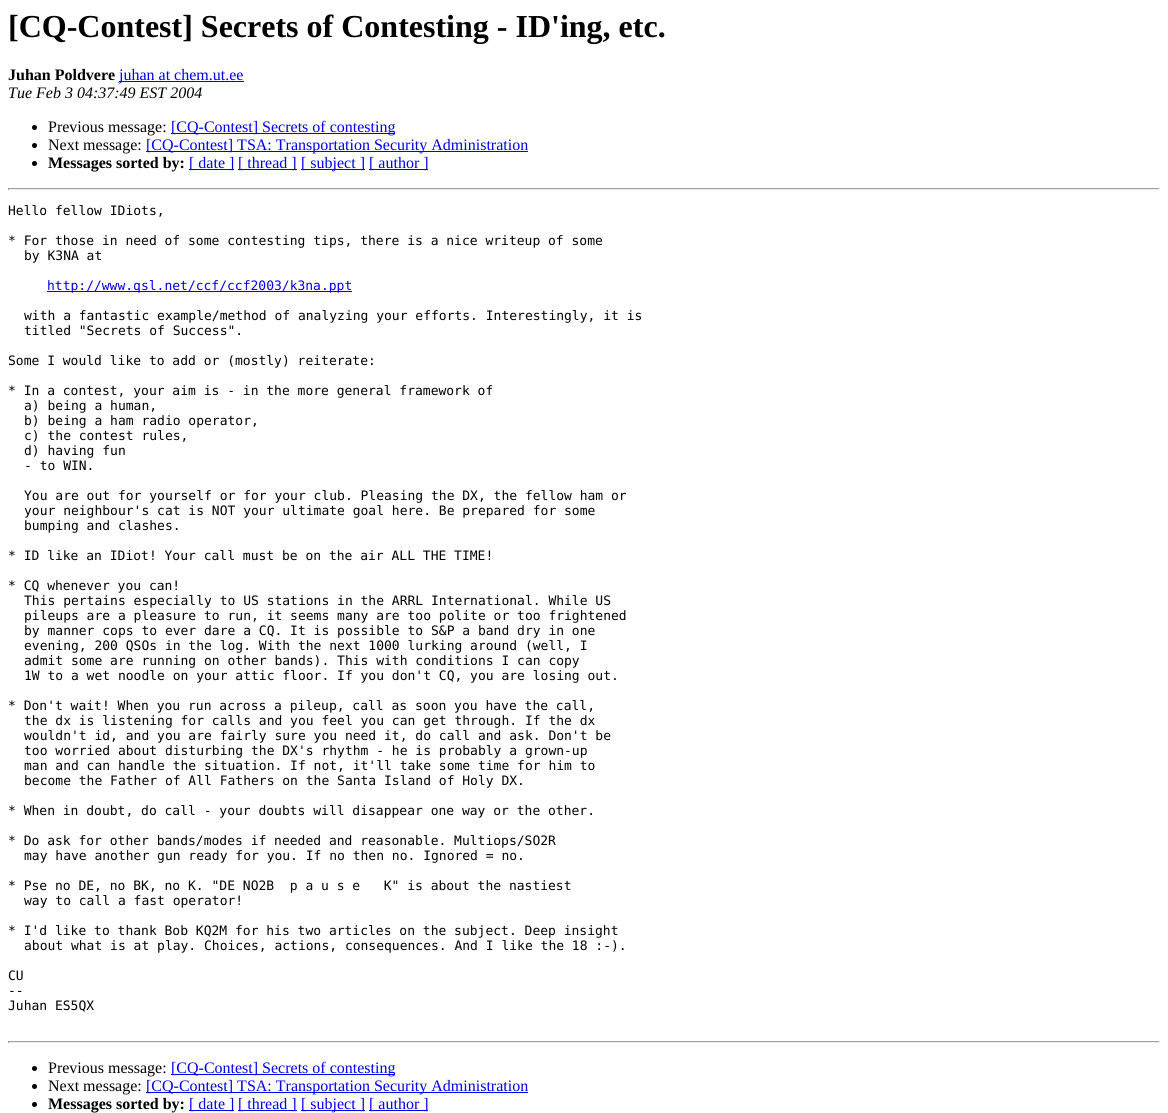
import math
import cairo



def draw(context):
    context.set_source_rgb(1, 1, 1)
    context.paint()
    context.set_source_rgb(0, 0, 238 / 255)
    context.rectangle(119, 81, 125, 1)
    context.fill()
    context.set_source_rgb(0, 0, 0)
    context.arc(34.5, 127.5, 2.5, 0, 2 * math.pi)
    context.fill()
    context.set_source_rgb(0, 0, 238 / 255)
    context.rectangle(171, 133, 224, 1)
    context.fill()
    context.set_source_rgb(0, 0, 0)
    context.arc(34.5, 145.5, 2.5, 0, 2 * math.pi)
    context.fill()
    context.set_source_rgb(0, 0, 238 / 255)
    context.rectangle(146, 151, 382, 1)
    context.fill()
    context.set_source_rgb(0, 0, 0)
    context.arc(34.5, 163.5, 2.5, 0, 2 * math.pi)
    context.fill()
    context.set_source_rgb(0, 0, 238 / 255)
    context.rectangle(189, 169, 45, 1)
    context.fill()
    context.rectangle(238, 169, 59, 1)
    context.fill()
    context.rectangle(301, 169, 64, 1)
    context.fill()
    context.rectangle(369, 169, 59, 1)
    context.fill()
    context.set_source_rgb(159 / 255, 159 / 255, 159 / 255)
    context.rectangle(8, 188, 1152, 1)
    context.fill()
    context.set_source_rgb(238 / 255, 238 / 255, 238 / 255)
    context.rectangle(1159, 188, 1, 2)
    context.fill()
    context.rectangle(8, 189, 1152, 1)
    context.fill()
    context.set_source_rgb(159 / 255, 159 / 255, 159 / 255)
    context.rectangle(8, 188, 1, 2)
    context.fill()
    context.set_source_rgb(0, 0, 238 / 255)
    context.rectangle(47, 291, 305, 1)
    context.fill()
    context.set_source_rgb(159 / 255, 159 / 255, 159 / 255)
    context.rectangle(8, 1041, 1152, 1)
    context.fill()
    context.set_source_rgb(238 / 255, 238 / 255, 238 / 255)
    context.rectangle(1159, 1041, 1, 2)
    context.fill()
    context.rectangle(8, 1042, 1152, 1)
    context.fill()
    context.set_source_rgb(159 / 255, 159 / 255, 159 / 255)
    context.rectangle(8, 1041, 1, 2)
    context.fill()
    context.set_source_rgb(0, 0, 0)
    context.arc(34.5, 1068.5, 2.5, 0, 2 * math.pi)
    context.fill()
    context.set_source_rgb(0, 0, 238 / 255)
    context.rectangle(171, 1074, 224, 1)
    context.fill()
    context.set_source_rgb(0, 0, 0)
    context.arc(34.5, 1086.5, 2.5, 0, 2 * math.pi)
    context.fill()
    context.set_source_rgb(0, 0, 238 / 255)
    context.rectangle(146, 1092, 382, 1)
    context.fill()
    context.set_source_rgb(0, 0, 0)
    context.arc(34.5, 1104.5, 2.5, 0, 2 * math.pi)
    context.fill()
    context.set_source_rgb(0, 0, 238 / 255)
    context.rectangle(189, 1110, 45, 1)
    context.fill()
    context.rectangle(238, 1110, 59, 1)
    context.fill()
    context.rectangle(301, 1110, 64, 1)
    context.fill()
    context.rectangle(369, 1110, 59, 1)
    context.fill()
    context.select_font_face("Liberation Serif", cairo.FontSlant.NORMAL, cairo.FontWeight.BOLD)
    context.set_font_size(32)
    context.set_source_rgb(0, 0, 0)
    context.move_to(8, 37)
    context.show_text("[CQ-Contest] Secrets of Contesting - ID'ing, etc.")
    context.set_font_size(16)
    context.move_to(8, 80)
    context.show_text("Juhan Poldvere")
    context.select_font_face("Liberation Serif")
    context.set_source_rgb(0, 0, 238 / 255)
    context.move_to(119, 80)
    context.show_text("juhan at chem.ut.ee")
    context.select_font_face("Liberation Serif", cairo.FontSlant.ITALIC)
    context.set_source_rgb(0, 0, 0)
    context.move_to(8, 98)
    context.show_text("Tue Feb 3 04:37:49 EST 2004")
    context.select_font_face("Liberation Serif")
    context.move_to(48, 132)
    context.show_text("Previous message:")
    context.set_source_rgb(0, 0, 238 / 255)
    context.move_to(171, 132)
    context.show_text("[CQ-Contest] Secrets of contesting")
    context.set_source_rgb(0, 0, 0)
    context.move_to(48, 150)
    context.show_text("Next message:")
    context.set_source_rgb(0, 0, 238 / 255)
    context.move_to(146, 150)
    context.show_text("[CQ-Contest] TSA: Transportation Security Administration")
    context.select_font_face("Liberation Serif", cairo.FontSlant.NORMAL, cairo.FontWeight.BOLD)
    context.set_source_rgb(0, 0, 0)
    context.move_to(48, 168)
    context.show_text("Messages sorted by:")
    context.select_font_face("Liberation Serif")
    context.set_source_rgb(0, 0, 238 / 255)
    context.move_to(189, 168)
    context.show_text("[ date ]")
    context.move_to(238, 168)
    context.show_text("[ thread ]")
    context.move_to(301, 168)
    context.show_text("[ subject ]")
    context.move_to(369, 168)
    context.show_text("[ author ]")
    context.select_font_face("DejaVu Sans Mono")
    context.set_font_size(13)
    context.set_source_rgb(0, 0, 0)
    context.move_to(8, 215)
    context.show_text("Hello fellow IDiots,")
    context.move_to(8, 245)
    context.show_text("* For those in need of some contesting tips, there is a nice writeup of some")
    context.move_to(24, 260)
    context.show_text("by K3NA at")
    context.set_source_rgb(0, 0, 238 / 255)
    context.move_to(47, 290)
    context.show_text("http://www.qsl.net/ccf/ccf2003/k3na.ppt")
    context.set_source_rgb(0, 0, 0)
    context.move_to(24, 320)
    context.show_text("with a fantastic example/method of analyzing your efforts. Interestingly, it is")
    context.move_to(24, 335)
    context.show_text("titled \"Secrets of Success\".")
    context.move_to(8, 365)
    context.show_text("Some I would like to add or (mostly) reiterate:")
    context.move_to(8, 395)
    context.show_text("* In a contest, your aim is - in the more general framework of")
    context.move_to(24, 410)
    context.show_text("a) being a human,")
    context.move_to(24, 425)
    context.show_text("b) being a ham radio operator,")
    context.move_to(24, 440)
    context.show_text("c) the contest rules,")
    context.move_to(24, 455)
    context.show_text("d) having fun")
    context.move_to(24, 470)
    context.show_text("- to WIN.")
    context.move_to(24, 500)
    context.show_text("You are out for yourself or for your club. Pleasing the DX, the fellow ham or")
    context.move_to(24, 515)
    context.show_text("your neighbour's cat is NOT your ultimate goal here. Be prepared for some")
    context.move_to(24, 530)
    context.show_text("bumping and clashes.")
    context.move_to(8, 560)
    context.show_text("* ID like an IDiot! Your call must be on the air ALL THE TIME!")
    context.move_to(8, 590)
    context.show_text("* CQ whenever you can!")
    context.move_to(24, 605)
    context.show_text("This pertains especially to US stations in the ARRL International. While US")
    context.move_to(24, 620)
    context.show_text("pileups are a pleasure to run, it seems many are too polite or too frightened")
    context.move_to(24, 635)
    context.show_text("by manner cops to ever dare a CQ. It is possible to S&P a band dry in one")
    context.move_to(24, 650)
    context.show_text("evening, 200 QSOs in the log. With the next 1000 lurking around (well, I")
    context.move_to(24, 665)
    context.show_text("admit some are running on other bands). This with conditions I can copy")
    context.move_to(24, 680)
    context.show_text("1W to a wet noodle on your attic floor. If you don't CQ, you are losing out.")
    context.move_to(8, 710)
    context.show_text("* Don't wait! When you run across a pileup, call as soon you have the call,")
    context.move_to(24, 725)
    context.show_text("the dx is listening for calls and you feel you can get through. If the dx")
    context.move_to(24, 740)
    context.show_text("wouldn't id, and you are fairly sure you need it, do call and ask. Don't be")
    context.move_to(24, 755)
    context.show_text("too worried about disturbing the DX's rhythm - he is probably a grown-up")
    context.move_to(24, 770)
    context.show_text("man and can handle the situation. If not, it'll take some time for him to")
    context.move_to(24, 785)
    context.show_text("become the Father of All Fathers on the Santa Island of Holy DX.")
    context.move_to(8, 815)
    context.show_text("* When in doubt, do call - your doubts will disappear one way or the other.")
    context.move_to(8, 845)
    context.show_text("* Do ask for other bands/modes if needed and reasonable. Multiops/SO2R")
    context.move_to(24, 860)
    context.show_text("may have another gun ready for you. If no then no. Ignored = no.")
    context.move_to(8, 890)
    context.show_text("* Pse no DE, no BK, no K. \"DE NO2B  p a u s e   K\" is about the nastiest")
    context.move_to(24, 905)
    context.show_text("way to call a fast operator!")
    context.move_to(8, 935)
    context.show_text("* I'd like to thank Bob KQ2M for his two articles on the subject. Deep insight")
    context.move_to(24, 950)
    context.show_text("about what is at play. Choices, actions, consequences. And I like the 18 :-).")
    context.move_to(8, 980)
    context.show_text("CU")
    context.move_to(8, 995)
    context.show_text("--")
    context.move_to(8, 1010)
    context.show_text("Juhan ES5QX")
    context.select_font_face("Liberation Serif")
    context.set_font_size(16)
    context.move_to(48, 1073)
    context.show_text("Previous message:")
    context.set_source_rgb(0, 0, 238 / 255)
    context.move_to(171, 1073)
    context.show_text("[CQ-Contest] Secrets of contesting")
    context.set_source_rgb(0, 0, 0)
    context.move_to(48, 1091)
    context.show_text("Next message:")
    context.set_source_rgb(0, 0, 238 / 255)
    context.move_to(146, 1091)
    context.show_text("[CQ-Contest] TSA: Transportation Security Administration")
    context.select_font_face("Liberation Serif", cairo.FontSlant.NORMAL, cairo.FontWeight.BOLD)
    context.set_source_rgb(0, 0, 0)
    context.move_to(48, 1109)
    context.show_text("Messages sorted by:")
    context.select_font_face("Liberation Serif")
    context.set_source_rgb(0, 0, 238 / 255)
    context.move_to(189, 1109)
    context.show_text("[ date ]")
    context.move_to(238, 1109)
    context.show_text("[ thread ]")
    context.move_to(301, 1109)
    context.show_text("[ subject ]")
    context.move_to(369, 1109)
    context.show_text("[ author ]")


surface = cairo.ImageSurface(cairo.Format.RGB24, 1168, 1113)
context = cairo.Context(surface)
options = cairo.FontOptions()
options.set_hint_metrics(cairo.HintMetrics.OFF)
options.set_hint_style(cairo.HintStyle.NONE)
context.set_font_options(options)
context.set_miter_limit(4)
draw(context)
surface.write_to_png("out.png")
